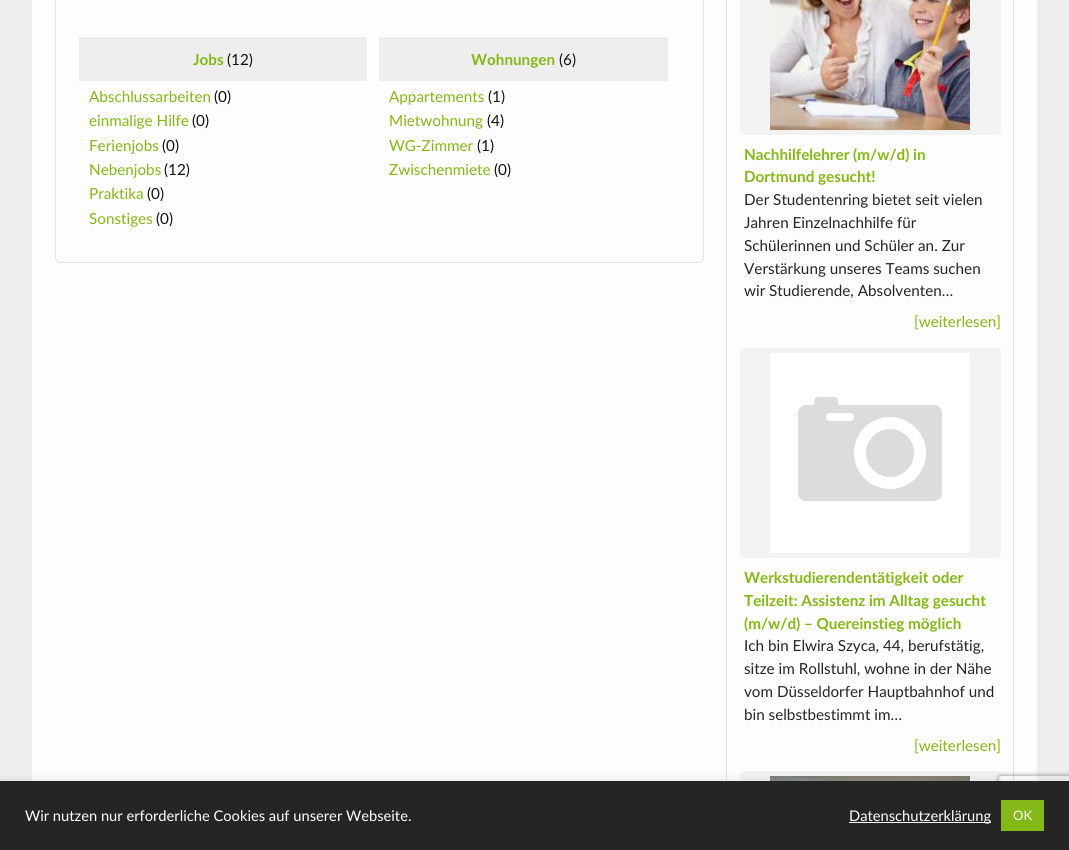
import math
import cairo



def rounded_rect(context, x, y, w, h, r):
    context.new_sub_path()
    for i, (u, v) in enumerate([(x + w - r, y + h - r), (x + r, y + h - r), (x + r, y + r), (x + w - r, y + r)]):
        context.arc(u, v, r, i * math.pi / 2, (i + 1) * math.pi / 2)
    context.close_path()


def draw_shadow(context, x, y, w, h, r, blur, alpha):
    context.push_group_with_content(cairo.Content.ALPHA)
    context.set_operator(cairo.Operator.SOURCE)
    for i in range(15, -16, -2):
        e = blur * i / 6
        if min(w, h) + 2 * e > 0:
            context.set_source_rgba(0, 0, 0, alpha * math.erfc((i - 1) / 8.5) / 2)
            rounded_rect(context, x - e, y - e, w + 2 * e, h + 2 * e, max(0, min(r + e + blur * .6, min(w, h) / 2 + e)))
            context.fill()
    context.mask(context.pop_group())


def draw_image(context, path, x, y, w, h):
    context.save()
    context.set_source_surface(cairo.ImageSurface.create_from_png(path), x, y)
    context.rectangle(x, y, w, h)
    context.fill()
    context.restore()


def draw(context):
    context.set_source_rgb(238 / 255, 238 / 255, 238 / 255)
    context.paint()
    context.set_source_rgb(253 / 255, 253 / 255, 253 / 255)
    context.rectangle(32, 0, 1005, 781)
    context.fill()
    rounded_rect(context, 55.5, -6.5, 648, 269, 5.5)
    context.set_source_rgb(226 / 255, 226 / 255, 226 / 255)
    context.set_line_width(1)
    context.stroke()
    context.set_source_rgb(238 / 255, 238 / 255, 238 / 255)
    context.rectangle(79, 37, 288, 44)
    context.fill()
    context.rectangle(379, 37, 289, 44)
    context.fill()
    context.rectangle(726.5, -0.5, 287, 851)
    context.set_source_rgb(226 / 255, 226 / 255, 226 / 255)
    context.stroke()
    context.set_source_rgb(242 / 255, 242 / 255, 242 / 255)
    rounded_rect(context, 740, -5, 261, 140, 5)
    context.fill()
    draw_image(context, "images/1.png", 770, 0, 200, 130)
    rounded_rect(context, 740, 348, 261, 210, 5)
    context.fill()
    draw_image(context, "images/2.png", 770, 353, 200, 200)
    rounded_rect(context, 740, 771, 261, 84, 5)
    context.fill()
    draw_image(context, "images/3.png", 770, 776, 200, 5)
    context.save()
    context.set_fill_rule(cairo.FillRule.EVEN_ODD)
    context.new_path()
    context.move_to(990, 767)
    context.line_to(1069, 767)
    context.line_to(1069, 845)
    context.line_to(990, 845)
    context.close_path()
    context.move_to(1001, 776)
    context.line_to(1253, 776)
    context.curve_to(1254, 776, 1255, 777, 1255, 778)
    context.line_to(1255, 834)
    context.curve_to(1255, 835, 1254, 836, 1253, 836)
    context.line_to(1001, 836)
    context.curve_to(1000, 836, 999, 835, 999, 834)
    context.line_to(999, 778)
    context.curve_to(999, 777, 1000, 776, 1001, 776)
    context.close_path()
    context.clip()
    context.set_source_rgb(128 / 255, 128 / 255, 128 / 255)
    draw_shadow(context, 999, 776, 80, 60, 2, 2.5, 1)
    context.restore()
    context.set_source_rgb(172 / 255, 171 / 255, 171 / 255)
    draw_shadow(context, 0, 780, 1069, 69, 0, 5, 0.3)
    context.set_source_rgb(37 / 255, 37 / 255, 37 / 255)
    context.rectangle(0, 781, 1069, 69)
    context.fill()
    context.set_source_rgb(1, 1, 1)
    context.rectangle(849, 822, 142, 1)
    context.fill()
    context.set_source_rgb(132 / 255, 184 / 255, 22 / 255)
    context.rectangle(1001, 800, 43, 31)
    context.fill()
    context.select_font_face("Lato", cairo.FontSlant.NORMAL, cairo.FontWeight.BOLD)
    context.set_font_size(15.25)
    context.move_to(193, 65)
    context.show_text("Jobs")
    context.select_font_face("Lato")
    context.set_source_rgb(17 / 255, 17 / 255, 17 / 255)
    context.move_to(227, 65)
    context.show_text("(12)")
    context.set_source_rgb(132 / 255, 184 / 255, 22 / 255)
    context.move_to(89, 102)
    context.show_text("Abschlussarbeiten")
    context.set_source_rgb(17 / 255, 17 / 255, 17 / 255)
    context.move_to(214, 102)
    context.show_text("(0)")
    context.set_source_rgb(132 / 255, 184 / 255, 22 / 255)
    context.move_to(89, 126)
    context.show_text("einmalige Hilfe")
    context.set_source_rgb(17 / 255, 17 / 255, 17 / 255)
    context.move_to(192, 126)
    context.show_text("(0)")
    context.set_source_rgb(132 / 255, 184 / 255, 22 / 255)
    context.move_to(89, 151)
    context.show_text("Ferienjobs")
    context.set_source_rgb(17 / 255, 17 / 255, 17 / 255)
    context.move_to(162, 151)
    context.show_text("(0)")
    context.set_source_rgb(132 / 255, 184 / 255, 22 / 255)
    context.move_to(89, 175)
    context.show_text("Nebenjobs")
    context.set_source_rgb(17 / 255, 17 / 255, 17 / 255)
    context.move_to(164, 175)
    context.show_text("(12)")
    context.set_source_rgb(132 / 255, 184 / 255, 22 / 255)
    context.move_to(89, 199)
    context.show_text("Praktika")
    context.set_source_rgb(17 / 255, 17 / 255, 17 / 255)
    context.move_to(147, 199)
    context.show_text("(0)")
    context.set_source_rgb(132 / 255, 184 / 255, 22 / 255)
    context.move_to(89, 224)
    context.show_text("Sonstiges")
    context.set_source_rgb(17 / 255, 17 / 255, 17 / 255)
    context.move_to(156, 224)
    context.show_text("(0)")
    context.select_font_face("Lato", cairo.FontSlant.NORMAL, cairo.FontWeight.BOLD)
    context.set_source_rgb(132 / 255, 184 / 255, 22 / 255)
    context.move_to(471, 65)
    context.show_text("Wohnungen")
    context.select_font_face("Lato")
    context.set_source_rgb(17 / 255, 17 / 255, 17 / 255)
    context.move_to(559, 65)
    context.show_text("(6)")
    context.set_source_rgb(132 / 255, 184 / 255, 22 / 255)
    context.move_to(389, 102)
    context.show_text("Appartements")
    context.set_source_rgb(17 / 255, 17 / 255, 17 / 255)
    context.move_to(488, 102)
    context.show_text("(1)")
    context.set_source_rgb(132 / 255, 184 / 255, 22 / 255)
    context.move_to(389, 126)
    context.show_text("Mietwohnung")
    context.set_source_rgb(17 / 255, 17 / 255, 17 / 255)
    context.move_to(487, 126)
    context.show_text("(4)")
    context.set_source_rgb(132 / 255, 184 / 255, 22 / 255)
    context.move_to(389, 151)
    context.show_text("WG-Zimmer")
    context.set_source_rgb(17 / 255, 17 / 255, 17 / 255)
    context.move_to(477, 151)
    context.show_text("(1)")
    context.set_source_rgb(132 / 255, 184 / 255, 22 / 255)
    context.move_to(389, 175)
    context.show_text("Zwischenmiete")
    context.set_source_rgb(17 / 255, 17 / 255, 17 / 255)
    context.move_to(494, 175)
    context.show_text("(0)")
    context.select_font_face("Lato", cairo.FontSlant.NORMAL, cairo.FontWeight.BOLD)
    context.set_source_rgb(132 / 255, 184 / 255, 22 / 255)
    context.move_to(744, 160)
    context.show_text("Nachhilfelehrer (m/w/d) in")
    context.move_to(744, 182)
    context.show_text("Dortmund gesucht!")
    context.select_font_face("Lato")
    context.set_source_rgb(37 / 255, 37 / 255, 37 / 255)
    context.move_to(744, 205)
    context.show_text("Der Studentenring bietet seit vielen")
    context.move_to(744, 228)
    context.show_text("Jahren Einzelnachhilfe für")
    context.move_to(744, 251)
    context.show_text("Schülerinnen und Schüler an. Zur")
    context.move_to(744, 274)
    context.show_text("Verstärkung unseres Teams suchen")
    context.move_to(744, 296)
    context.show_text("wir Studierende, Absolventen…")
    context.set_source_rgb(132 / 255, 184 / 255, 22 / 255)
    context.move_to(914, 327)
    context.show_text("[weiterlesen]")
    context.select_font_face("Lato", cairo.FontSlant.NORMAL, cairo.FontWeight.BOLD)
    context.move_to(744, 583)
    context.show_text("Werkstudierendentätigkeit oder")
    context.move_to(744, 606)
    context.show_text("Teilzeit: Assistenz im Alltag gesucht")
    context.move_to(744, 629)
    context.show_text("(m/w/d) – Quereinstieg möglich")
    context.select_font_face("Lato")
    context.set_source_rgb(37 / 255, 37 / 255, 37 / 255)
    context.move_to(744, 651)
    context.show_text("Ich bin Elwira Szyca, 44, berufstätig,")
    context.move_to(744, 674)
    context.show_text("sitze im Rollstuhl, wohne in der Nähe")
    context.move_to(744, 697)
    context.show_text("vom Düsseldorfer Hauptbahnhof und")
    context.move_to(744, 720)
    context.show_text("bin selbstbestimmt im…")
    context.set_source_rgb(132 / 255, 184 / 255, 22 / 255)
    context.move_to(914, 751)
    context.show_text("[weiterlesen]")
    context.set_font_size(14.7)
    context.set_source_rgb(1, 1, 1)
    context.move_to(25, 821)
    context.show_text("Wir nutzen nur erforderliche Cookies auf unserer Webseite.")
    context.move_to(849, 821)
    context.show_text("Datenschutzerklärung")
    context.set_font_size(13)
    context.move_to(1013, 820)
    context.show_text("OK")


surface = cairo.ImageSurface(cairo.Format.RGB24, 1069, 850)
context = cairo.Context(surface)
options = cairo.FontOptions()
options.set_hint_metrics(cairo.HintMetrics.OFF)
options.set_hint_style(cairo.HintStyle.NONE)
context.set_font_options(options)
context.set_miter_limit(4)
draw(context)
surface.write_to_png("out.png")
